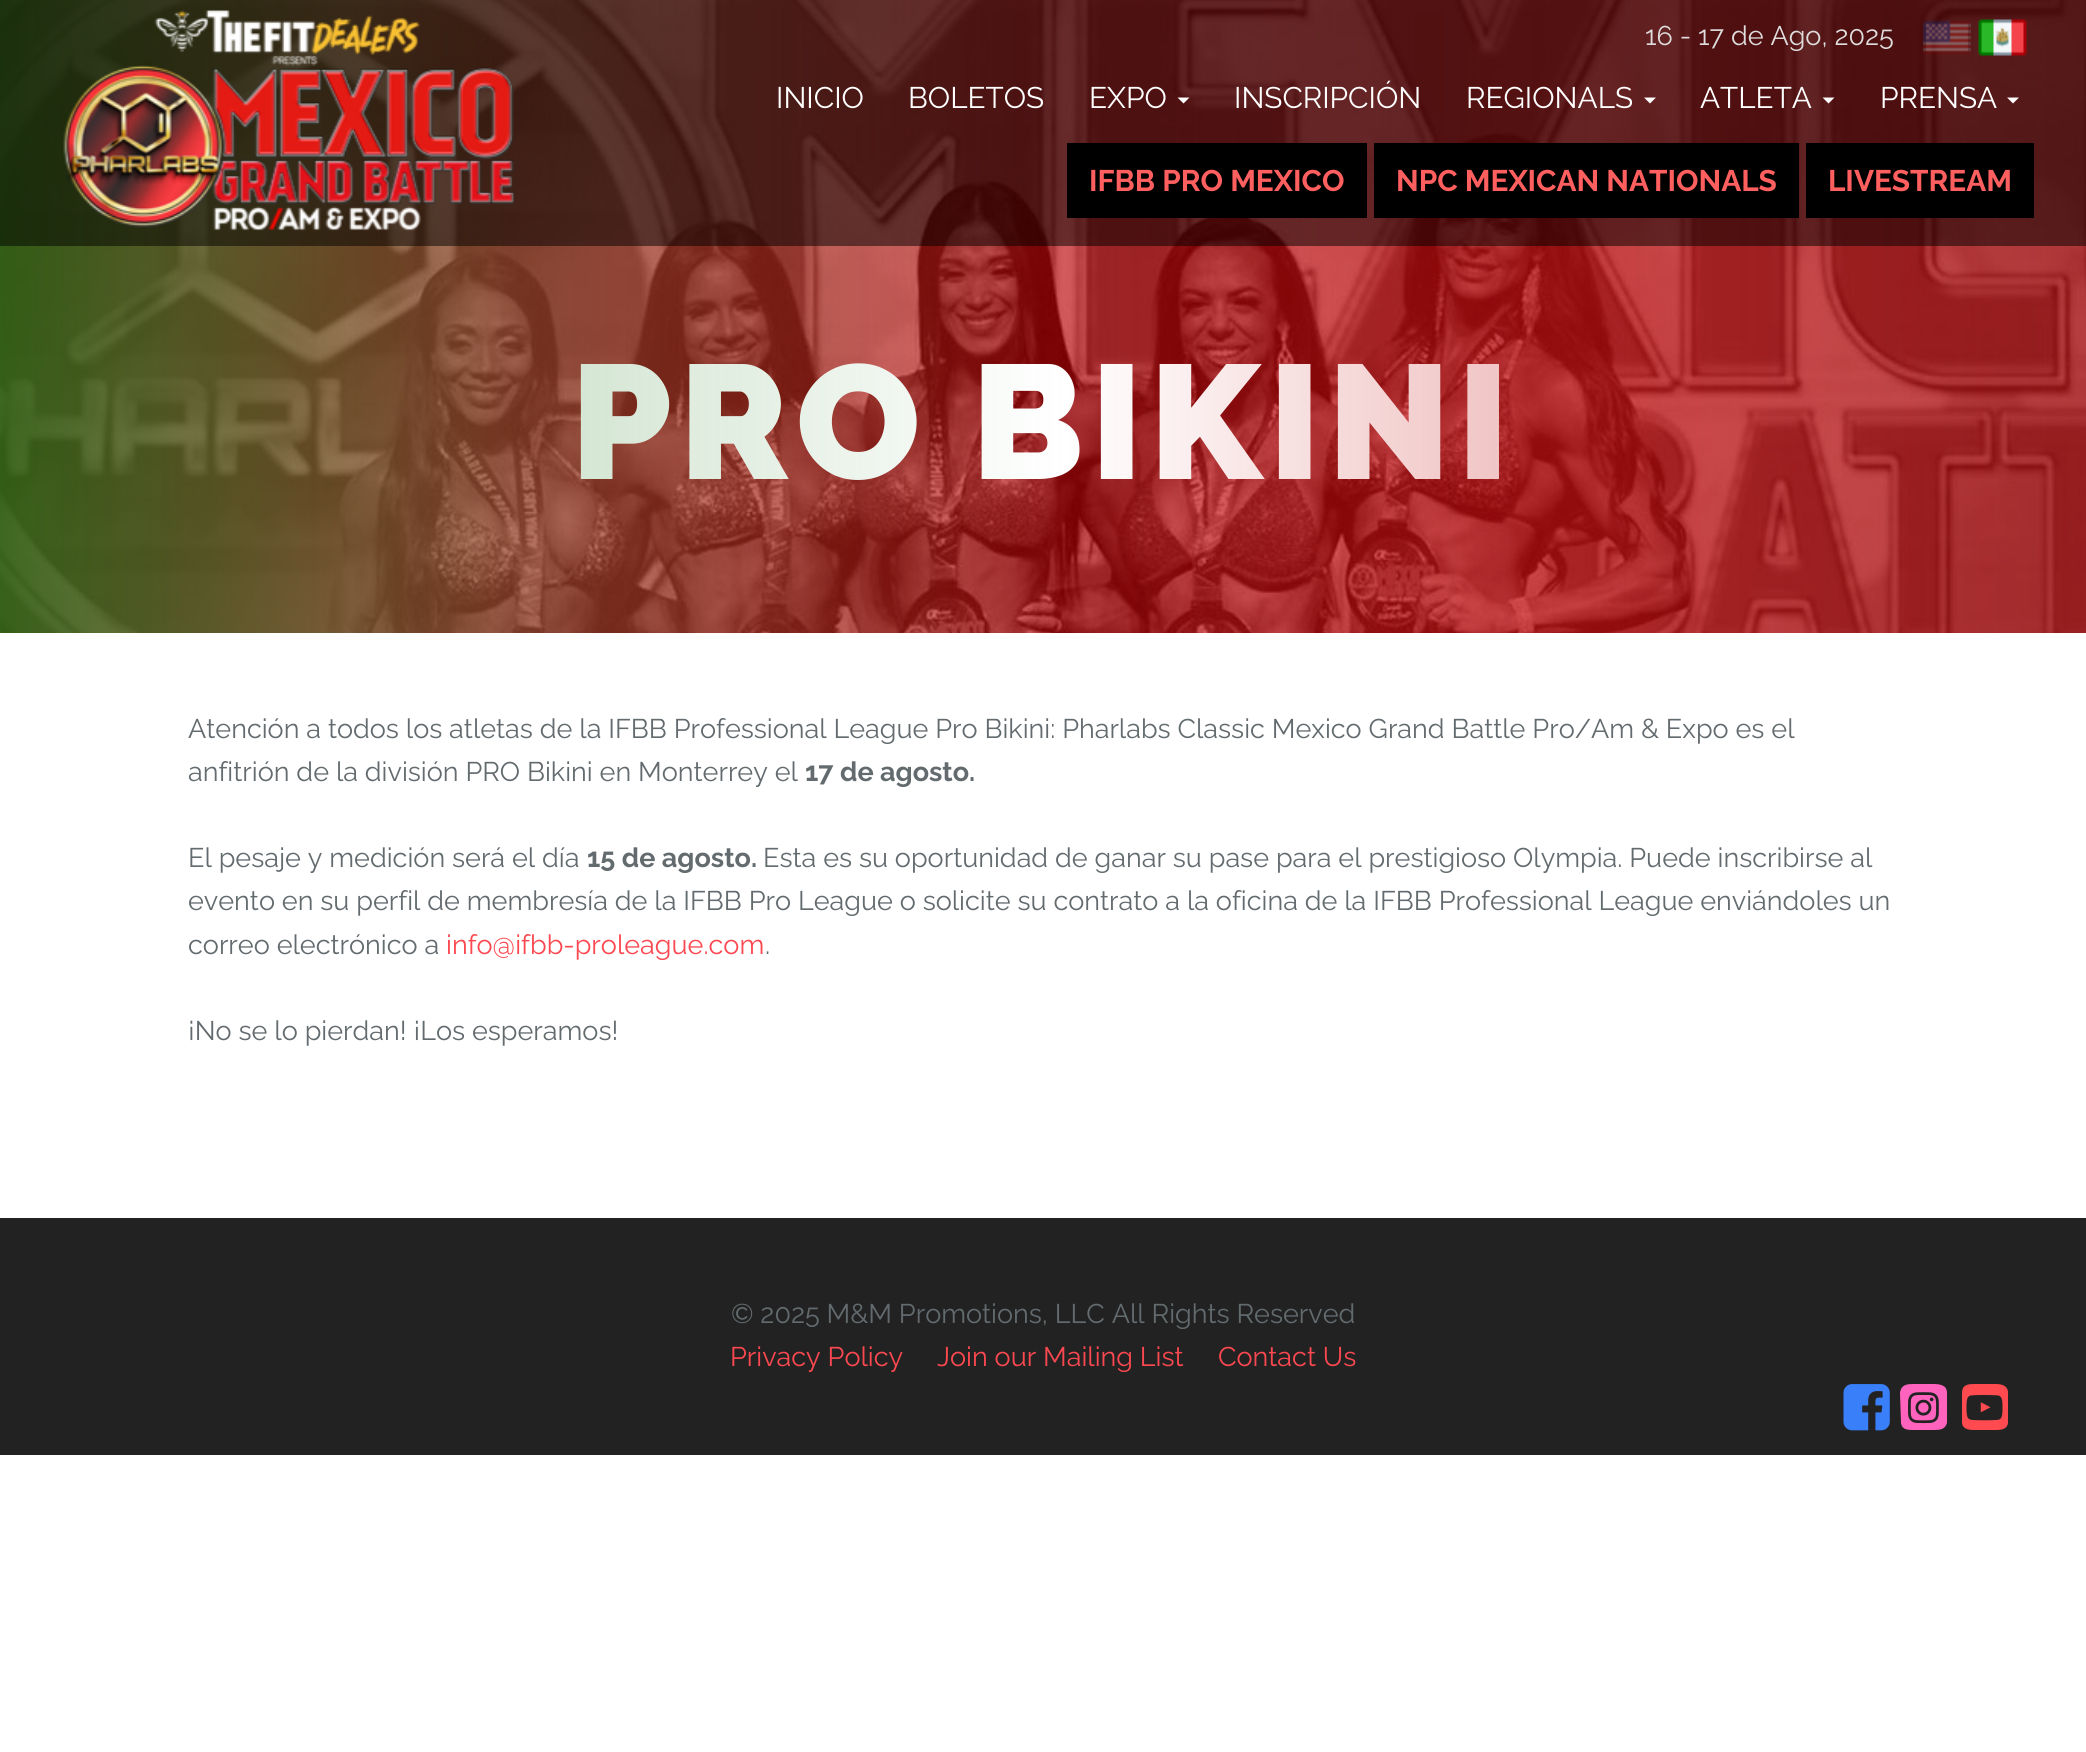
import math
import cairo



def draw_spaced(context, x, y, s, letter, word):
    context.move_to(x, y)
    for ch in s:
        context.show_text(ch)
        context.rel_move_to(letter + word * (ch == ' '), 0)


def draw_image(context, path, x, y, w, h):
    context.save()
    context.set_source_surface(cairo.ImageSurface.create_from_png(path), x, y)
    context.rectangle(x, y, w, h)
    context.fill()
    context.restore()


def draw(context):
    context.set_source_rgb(1, 1, 1)
    context.paint()
    draw_image(context, "images/4.png", 0, 0, 2086, 633)
    context.set_source_rgb(34 / 255, 34 / 255, 34 / 255)
    context.rectangle(0, 1218, 2086, 237)
    context.fill()
    draw_image(context, "images/5.png", 1843, 1384, 47, 47)
    context.set_source_rgb(1, 99 / 255, 190 / 255)
    context.new_path()
    context.move_to(1947, 1393)
    context.line_to(1947, 1423)
    context.curve_to(1945, 1430, 1939, 1430, 1933, 1430)
    context.line_to(1914, 1430)
    context.curve_to(1908, 1430, 1902, 1430, 1901, 1423)
    context.line_to(1900, 1393)
    context.curve_to(1901, 1384, 1908, 1384, 1914, 1384)
    context.line_to(1933, 1384)
    context.curve_to(1940, 1384, 1947, 1385, 1947, 1393)
    context.close_path()
    context.fill()
    draw_image(context, "images/6.png", 1908, 1392, 31, 32)
    context.set_source_rgb(1, 74 / 255, 80 / 255)
    context.new_path()
    context.move_to(2008, 1393)
    context.line_to(2008, 1423)
    context.curve_to(2007, 1430, 2000, 1430, 1995, 1430)
    context.line_to(1976, 1430)
    context.curve_to(1970, 1430, 1963, 1430, 1962, 1423)
    context.line_to(1962, 1393)
    context.curve_to(1962, 1384, 1969, 1384, 1976, 1384)
    context.line_to(1995, 1384)
    context.curve_to(2001, 1384, 2008, 1385, 2008, 1393)
    context.close_path()
    context.fill()
    draw_image(context, "images/7.png", 1966, 1395, 37, 26)
    context.select_font_face("Raleway Black")
    context.set_font_size(162)
    context.set_source_rgb(1, 1, 1)
    draw_spaced(context, 571, 479, "PRO BIKINI", 7.5, 0)
    gradient = cairo.LinearGradient(0, 317, 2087, 316)
    gradient.add_color_stop_rgba(0, 29 / 255, 112 / 255, 23 / 255, 0.8)
    gradient.add_color_stop_rgba(0.25, 100 / 255, 163 / 255, 96 / 255, 0.3)
    gradient.add_color_stop_rgba(0.51, 100 / 255, 163 / 255, 96 / 255, 0)
    gradient.add_color_stop_rgba(0.51, 201 / 255, 33 / 255, 33 / 255, 0)
    gradient.add_color_stop_rgba(0.75, 201 / 255, 33 / 255, 33 / 255, 0.3)
    gradient.add_color_stop_rgba(1, 122 / 255, 5 / 255, 5 / 255, 0.2)
    context.set_source(gradient)
    context.rectangle(0, 0, 2086, 633)
    context.fill()
    context.set_source_rgba(0, 0, 0, 0.5)
    context.rectangle(0, 0, 2086, 246)
    context.fill()
    draw_image(context, "images/1.png", 1923, 20, 48, 35)
    draw_image(context, "images/2.png", 1978, 19, 49, 37)
    context.select_font_face("Raleway")
    context.set_font_size(27)
    context.set_source_rgb(222 / 255, 220 / 255, 220 / 255)
    context.move_to(1645, 45)
    context.show_text("16 - 17 de Ago, 2025")
    context.set_source_rgb(0, 0, 0)
    context.rectangle(1067, 143, 300, 75)
    context.fill()
    context.select_font_face("Raleway", cairo.FontSlant.NORMAL, cairo.FontWeight.BOLD)
    context.set_font_size(29.75)
    context.set_source_rgb(1, 95 / 255, 95 / 255)
    context.move_to(1089, 191)
    context.show_text("IFBB PRO MEXICO")
    context.set_source_rgb(0, 0, 0)
    context.rectangle(1374, 143, 425, 75)
    context.fill()
    context.set_source_rgb(1, 95 / 255, 95 / 255)
    context.move_to(1396, 191)
    context.show_text("NPC MEXICAN NATIONALS")
    context.set_source_rgb(0, 0, 0)
    context.rectangle(1806, 143, 228, 75)
    context.fill()
    context.set_source_rgb(1, 95 / 255, 95 / 255)
    context.move_to(1828, 191)
    context.show_text("LIVESTREAM")
    context.set_source_rgb(1, 1, 1)
    context.new_path()
    context.move_to(2007, 97.5)
    context.line_to(2019, 97.5)
    context.line_to(2013, 103.5)
    context.close_path()
    context.fill()
    context.select_font_face("Raleway")
    context.move_to(1880, 108)
    context.show_text("PRENSA")
    context.new_path()
    context.move_to(1822.5, 97.5)
    context.line_to(1834.5, 97.5)
    context.line_to(1828.5, 103.5)
    context.close_path()
    context.fill()
    context.move_to(1700, 108)
    context.show_text("ATLETA")
    context.new_path()
    context.move_to(1644, 97.5)
    context.line_to(1656, 97.5)
    context.line_to(1650, 103.5)
    context.close_path()
    context.fill()
    context.move_to(1466, 108)
    context.show_text("REGIONALS")
    context.move_to(1234, 108)
    context.show_text("INSCRIPCIÓN")
    context.new_path()
    context.move_to(1177.5, 97.5)
    context.line_to(1189.5, 97.5)
    context.line_to(1183.5, 103.5)
    context.close_path()
    context.fill()
    context.move_to(1089, 108)
    context.show_text("EXPO")
    context.move_to(908, 108)
    context.show_text("BOLETOS")
    context.move_to(776, 108)
    context.show_text("INICIO")
    draw_image(context, "images/3.png", 63, 10, 452, 221)
    context.set_font_size(27)
    context.set_source_rgb(99 / 255, 107 / 255, 111 / 255)
    context.move_to(188, 738)
    context.show_text("Atención a todos los atletas de la IFBB Professional League Pro Bikini: Pharlabs Classic Mexico Grand Battle Pro/Am & Expo es el")
    context.move_to(188, 781)
    context.show_text("anfitrión de la división PRO Bikini en Monterrey el")
    context.select_font_face("Raleway", cairo.FontSlant.NORMAL, cairo.FontWeight.BOLD)
    context.move_to(805, 781)
    context.show_text("17 de agosto.")
    context.select_font_face("Raleway")
    context.move_to(188, 867)
    context.show_text("El pesaje y medición será el día")
    context.select_font_face("Raleway", cairo.FontSlant.NORMAL, cairo.FontWeight.BOLD)
    context.move_to(587, 867)
    context.show_text("15 de agosto.")
    context.select_font_face("Raleway")
    context.move_to(763, 867)
    context.show_text("Esta es su oportunidad de ganar su pase para el prestigioso Olympia. Puede inscribirse al")
    context.move_to(188, 910)
    context.show_text("evento en su perfil de membresía de la IFBB Pro League o solicite su contrato a la oficina de la IFBB Professional League enviándoles un")
    context.move_to(188, 954)
    context.show_text("correo electrónico a")
    context.set_source_rgb(252 / 255, 72 / 255, 80 / 255)
    context.move_to(446, 954)
    context.show_text("info@ifbb-proleague.com")
    context.set_source_rgb(99 / 255, 107 / 255, 111 / 255)
    context.move_to(765, 954)
    context.show_text(".")
    context.move_to(188, 1040)
    context.show_text("¡No se lo pierdan! ¡Los esperamos!")
    context.move_to(731, 1323)
    context.show_text("© 2025 M&M Promotions, LLC All Rights Reserved")
    context.set_source_rgb(252 / 255, 72 / 255, 80 / 255)
    context.move_to(730, 1366)
    context.show_text("Privacy Policy")
    context.move_to(937, 1366)
    context.show_text("Join our Mailing List")
    context.move_to(1218, 1366)
    context.show_text("Contact Us")


surface = cairo.ImageSurface(cairo.Format.RGB24, 2086, 1752)
context = cairo.Context(surface)
options = cairo.FontOptions()
options.set_hint_metrics(cairo.HintMetrics.OFF)
options.set_hint_style(cairo.HintStyle.NONE)
context.set_font_options(options)
context.set_miter_limit(4)
draw(context)
surface.write_to_png("out.png")
